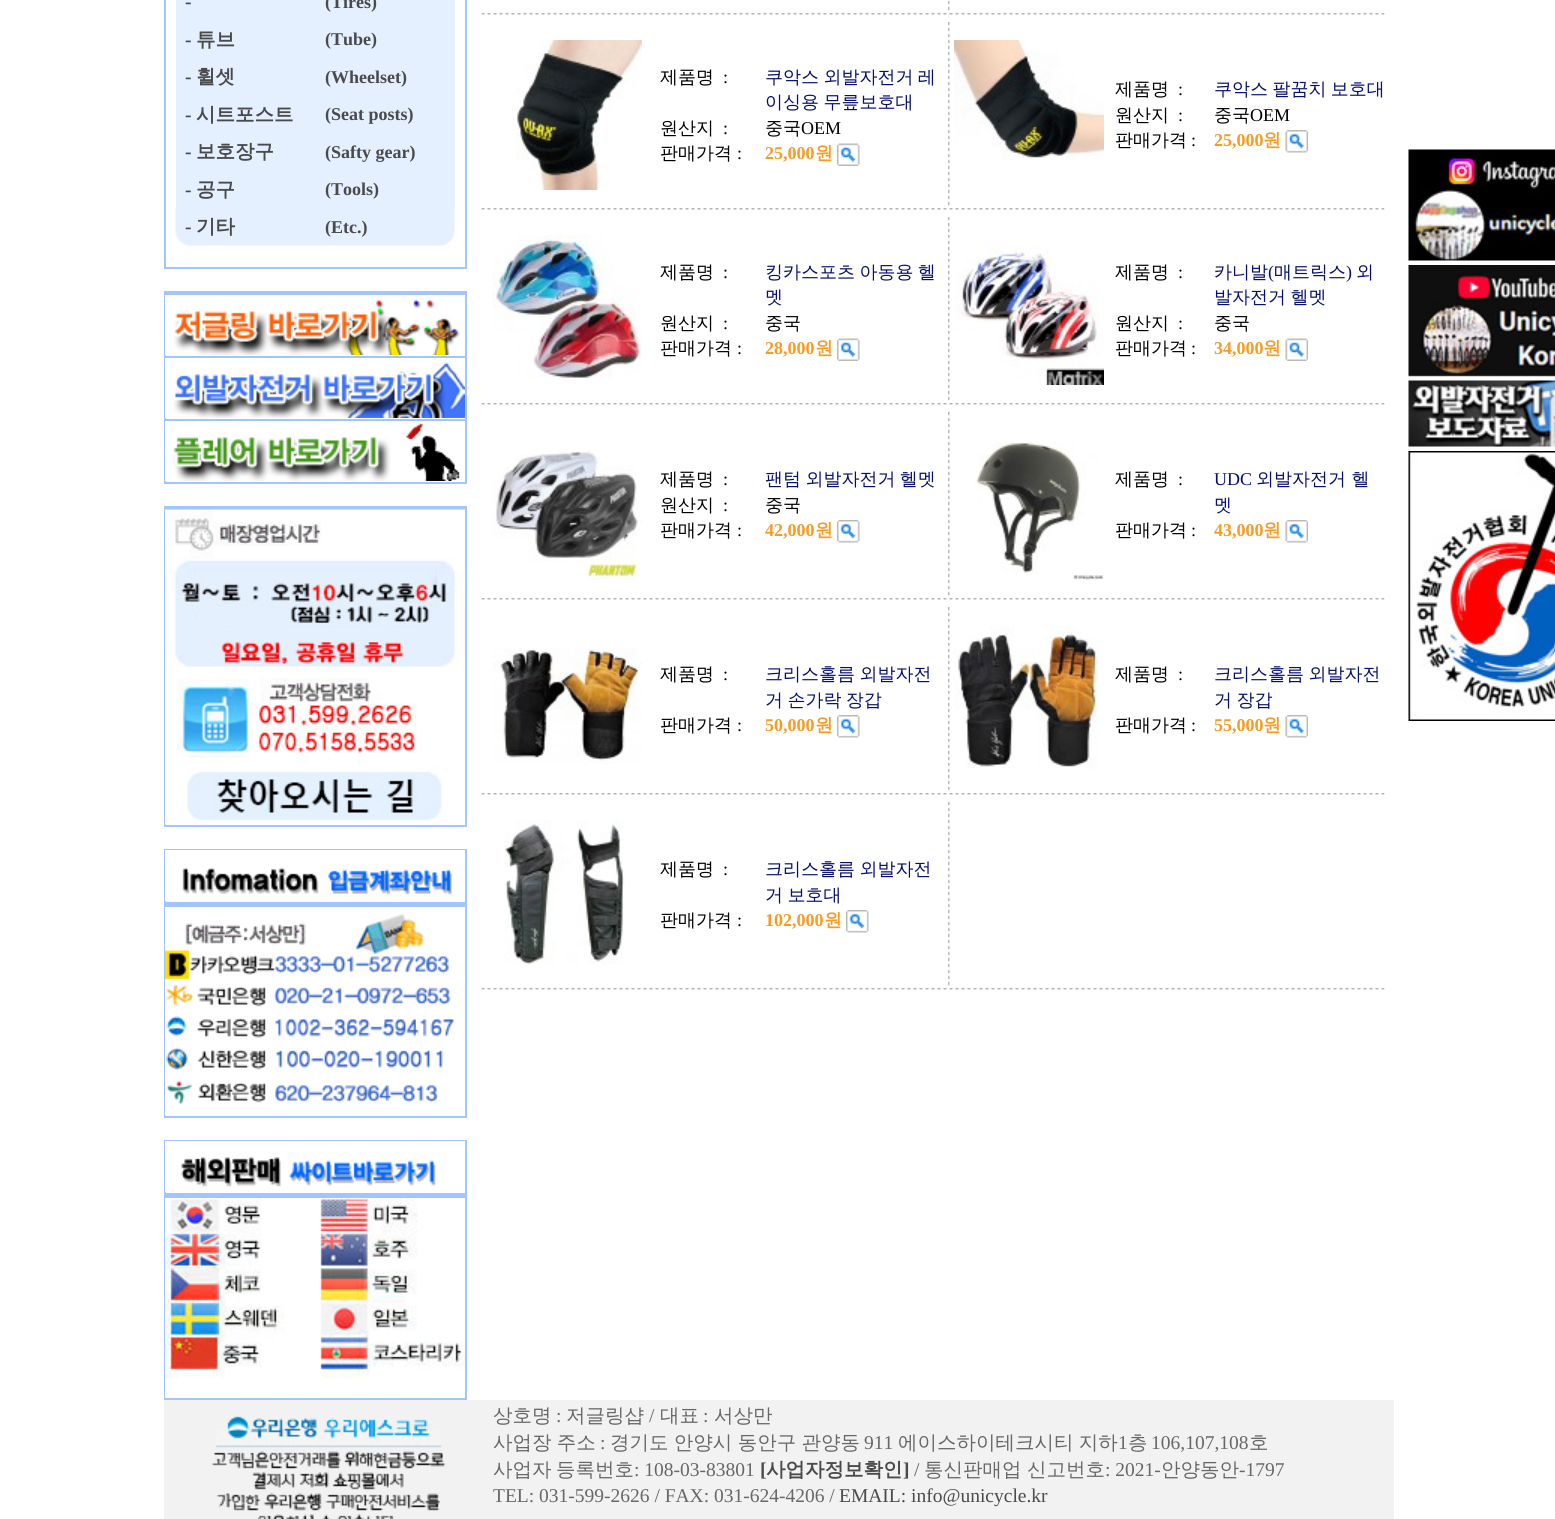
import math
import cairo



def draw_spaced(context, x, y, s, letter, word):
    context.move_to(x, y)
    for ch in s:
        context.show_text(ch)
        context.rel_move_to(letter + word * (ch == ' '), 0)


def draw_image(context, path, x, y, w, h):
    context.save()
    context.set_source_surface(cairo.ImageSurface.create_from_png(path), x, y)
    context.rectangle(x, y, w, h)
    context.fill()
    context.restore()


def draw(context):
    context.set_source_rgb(1, 1, 1)
    context.paint()
    context.set_source_rgb(162 / 255, 197 / 255, 254 / 255)
    context.rectangle(465, 0, 2, 269)
    context.fill()
    context.rectangle(164, 267, 303, 2)
    context.fill()
    context.rectangle(164, 0, 2, 269)
    context.fill()
    context.set_source_rgb(228 / 255, 239 / 255, 1)
    context.rectangle(176, 0, 279, 21)
    context.fill()
    context.rectangle(176, 21, 279, 38)
    context.fill()
    context.rectangle(176, 59, 279, 37)
    context.fill()
    context.rectangle(176, 96, 279, 38)
    context.fill()
    context.rectangle(176, 134, 279, 37)
    context.fill()
    context.rectangle(176, 171, 145, 37)
    context.fill()
    context.rectangle(321, 171, 134, 38)
    context.fill()
    draw_image(context, "images/1.png", 175, 208, 146, 38)
    draw_image(context, "images/2.png", 321, 209, 134, 37)
    context.set_source_rgb(162 / 255, 197 / 255, 254 / 255)
    context.rectangle(164, 291, 303, 2)
    context.fill()
    context.rectangle(465, 291, 2, 192)
    context.fill()
    context.rectangle(164, 482, 303, 2)
    context.fill()
    context.rectangle(165, 293, 300, 2)
    context.fill()
    context.rectangle(165, 356, 300, 2)
    context.fill()
    context.rectangle(165, 419, 300, 2)
    context.fill()
    context.rectangle(164, 291, 2, 192)
    context.fill()
    draw_image(context, "images/3.png", 165, 295, 300, 60)
    draw_image(context, "images/4.png", 165, 358, 300, 60)
    draw_image(context, "images/5.png", 165, 421, 300, 60)
    context.rectangle(164, 506, 303, 2)
    context.fill()
    context.rectangle(465, 506, 2, 321)
    context.fill()
    context.rectangle(164, 825, 303, 2)
    context.fill()
    context.rectangle(165, 508, 300, 2)
    context.fill()
    context.rectangle(164, 506, 2, 321)
    context.fill()
    draw_image(context, "images/6.png", 165, 509, 300, 257)
    draw_image(context, "images/7.png", 165, 766, 277, 59)
    context.rectangle(164, 849, 303, 1)
    context.fill()
    context.rectangle(465, 849, 2, 269)
    context.fill()
    context.rectangle(164, 1116, 303, 2)
    context.fill()
    context.rectangle(165, 902, 300, 5)
    context.fill()
    context.rectangle(164, 849, 2, 269)
    context.fill()
    draw_image(context, "images/8.png", 165, 850, 300, 51)
    draw_image(context, "images/9.png", 165, 907, 300, 209)
    context.rectangle(164, 1140, 303, 1)
    context.fill()
    context.rectangle(465, 1140, 2, 260)
    context.fill()
    context.rectangle(164, 1398, 303, 2)
    context.fill()
    context.rectangle(165, 1193, 300, 5)
    context.fill()
    context.rectangle(164, 1140, 2, 260)
    context.fill()
    draw_image(context, "images/10.png", 165, 1141, 300, 51)
    draw_image(context, "images/11.png", 165, 1198, 300, 200)
    draw_image(context, "images/12.png", 948, 0, 2, 11)
    draw_image(context, "images/13.png", 481, 13, 904, 2)
    draw_image(context, "images/14.png", 516, 40, 126, 150)
    draw_image(context, "images/15.png", 837, 143, 23, 23)
    draw_image(context, "images/16.png", 948, 22, 2, 184)
    draw_image(context, "images/17.png", 954, 40, 150, 120)
    draw_image(context, "images/18.png", 1285, 130, 23, 23)
    draw_image(context, "images/13.png", 481, 208, 904, 2)
    draw_image(context, "images/19.png", 492, 235, 150, 144)
    draw_image(context, "images/15.png", 837, 338, 23, 23)
    draw_image(context, "images/16.png", 948, 217, 2, 184)
    draw_image(context, "images/20.png", 954, 235, 150, 150)
    draw_image(context, "images/21.png", 1285, 338, 23, 23)
    draw_image(context, "images/13.png", 481, 403, 904, 2)
    draw_image(context, "images/22.png", 492, 450, 150, 130)
    draw_image(context, "images/23.png", 837, 520, 23, 23)
    draw_image(context, "images/16.png", 948, 412, 2, 184)
    draw_image(context, "images/24.png", 975, 440, 129, 140)
    draw_image(context, "images/18.png", 1285, 520, 23, 23)
    draw_image(context, "images/13.png", 481, 598, 904, 2)
    draw_image(context, "images/25.png", 492, 648, 150, 116)
    draw_image(context, "images/23.png", 837, 715, 23, 23)
    draw_image(context, "images/16.png", 948, 607, 2, 184)
    draw_image(context, "images/26.png", 954, 625, 145, 144)
    draw_image(context, "images/18.png", 1285, 715, 23, 23)
    draw_image(context, "images/13.png", 481, 793, 904, 2)
    draw_image(context, "images/27.png", 504, 820, 121, 145)
    draw_image(context, "images/23.png", 846, 910, 23, 23)
    draw_image(context, "images/16.png", 948, 802, 2, 184)
    draw_image(context, "images/13.png", 481, 988, 904, 2)
    context.set_source_rgb(242 / 255, 242 / 255, 242 / 255)
    context.rectangle(164, 1400, 1230, 119)
    context.fill()
    draw_image(context, "images/28.png", 211, 1416, 235, 103)
    draw_image(context, "images/29.png", 1408, 149, 147, 112)
    draw_image(context, "images/30.png", 1408, 265, 147, 112)
    draw_image(context, "images/31.png", 1408, 380, 147, 71)
    draw_image(context, "images/32.png", 1408, 451, 147, 270)
    context.select_font_face("Liberation Serif", cairo.FontSlant.NORMAL, cairo.FontWeight.BOLD)
    context.set_font_size(19.5)
    context.set_source_rgb(74 / 255, 74 / 255, 74 / 255)
    context.move_to(185, 8)
    context.show_text("-")
    context.set_font_size(18)
    context.move_to(325, 8)
    context.show_text("(Tires)")
    context.set_font_size(19.5)
    context.move_to(185, 46)
    context.show_text("-")
    context.select_font_face("WenQuanYi Zen Hei", cairo.FontSlant.NORMAL, cairo.FontWeight.BOLD)
    context.move_to(196, 46)
    context.show_text("튜브")
    context.select_font_face("Liberation Serif", cairo.FontSlant.NORMAL, cairo.FontWeight.BOLD)
    context.set_font_size(18)
    context.move_to(325, 45)
    context.show_text("(Tube)")
    context.set_font_size(19.5)
    context.move_to(185, 83)
    context.show_text("-")
    context.select_font_face("WenQuanYi Zen Hei", cairo.FontSlant.NORMAL, cairo.FontWeight.BOLD)
    context.move_to(196, 83)
    context.show_text("휠셋")
    context.select_font_face("Liberation Serif", cairo.FontSlant.NORMAL, cairo.FontWeight.BOLD)
    context.set_font_size(18)
    context.move_to(325, 83)
    context.show_text("(Wheelset)")
    context.set_font_size(19.5)
    context.move_to(185, 121)
    context.show_text("-")
    context.select_font_face("WenQuanYi Zen Hei", cairo.FontSlant.NORMAL, cairo.FontWeight.BOLD)
    context.move_to(196, 121)
    context.show_text("시트포스트")
    context.select_font_face("Liberation Serif", cairo.FontSlant.NORMAL, cairo.FontWeight.BOLD)
    context.set_font_size(18)
    context.move_to(325, 120)
    context.show_text("(Seat posts)")
    context.set_font_size(19.5)
    context.move_to(185, 158)
    context.show_text("-")
    context.select_font_face("WenQuanYi Zen Hei", cairo.FontSlant.NORMAL, cairo.FontWeight.BOLD)
    context.move_to(196, 158)
    context.show_text("보호장구")
    context.select_font_face("Liberation Serif", cairo.FontSlant.NORMAL, cairo.FontWeight.BOLD)
    context.set_font_size(18)
    context.move_to(325, 158)
    context.show_text("(Safty gear)")
    context.set_font_size(19.5)
    context.move_to(185, 196)
    context.show_text("-")
    context.select_font_face("WenQuanYi Zen Hei", cairo.FontSlant.NORMAL, cairo.FontWeight.BOLD)
    context.move_to(196, 196)
    context.show_text("공구")
    context.select_font_face("Liberation Serif", cairo.FontSlant.NORMAL, cairo.FontWeight.BOLD)
    context.set_font_size(18)
    context.move_to(325, 195)
    context.show_text("(Tools)")
    context.set_font_size(19.5)
    context.move_to(185, 233)
    context.show_text("-")
    context.select_font_face("WenQuanYi Zen Hei", cairo.FontSlant.NORMAL, cairo.FontWeight.BOLD)
    context.move_to(196, 233)
    context.show_text("기타")
    context.select_font_face("Liberation Serif", cairo.FontSlant.NORMAL, cairo.FontWeight.BOLD)
    context.set_font_size(18)
    context.move_to(325, 233)
    context.show_text("(Etc.)")
    context.select_font_face("WenQuanYi Zen Hei Medium")
    context.set_source_rgb(0, 0, 0)
    context.move_to(660, 83)
    context.show_text("제품명")
    context.select_font_face("Liberation Serif")
    context.move_to(723, 83)
    context.show_text(":")
    context.select_font_face("WenQuanYi Zen Hei Medium")
    context.set_source_rgb(4 / 255, 15 / 255, 111 / 255)
    draw_spaced(context, 765, 83, "쿠악스 외발자전거 레", 0, -1)
    draw_spaced(context, 765, 108, "이싱용 무릎보호대", 0, -1)
    context.set_source_rgb(0, 0, 0)
    context.move_to(660, 134)
    context.show_text("원산지")
    context.select_font_face("Liberation Serif")
    context.move_to(723, 134)
    context.show_text(":")
    context.select_font_face("WenQuanYi Zen Hei Medium")
    context.move_to(765, 134)
    context.show_text("중국")
    context.select_font_face("Liberation Serif")
    context.move_to(801, 134)
    context.show_text("OEM")
    context.select_font_face("WenQuanYi Zen Hei Medium")
    context.move_to(660, 159)
    context.show_text("판매가격")
    context.select_font_face("Liberation Serif")
    context.move_to(737, 159)
    context.show_text(":")
    context.select_font_face("Liberation Serif", cairo.FontSlant.NORMAL, cairo.FontWeight.BOLD)
    context.set_source_rgb(248 / 255, 155 / 255, 34 / 255)
    context.move_to(765, 159)
    context.show_text("25,000")
    context.select_font_face("WenQuanYi Zen Hei", cairo.FontSlant.NORMAL, cairo.FontWeight.BOLD)
    context.move_to(815, 159)
    context.show_text("원")
    context.select_font_face("WenQuanYi Zen Hei Medium")
    context.set_source_rgb(0, 0, 0)
    context.move_to(1115, 95)
    context.show_text("제품명")
    context.select_font_face("Liberation Serif")
    context.move_to(1178, 95)
    context.show_text(":")
    context.select_font_face("WenQuanYi Zen Hei Medium")
    context.set_source_rgb(4 / 255, 15 / 255, 111 / 255)
    draw_spaced(context, 1214, 95, "쿠악스 팔꿈치 보호대", 0, -1)
    context.set_source_rgb(0, 0, 0)
    context.move_to(1115, 121)
    context.show_text("원산지")
    context.select_font_face("Liberation Serif")
    context.move_to(1178, 121)
    context.show_text(":")
    context.select_font_face("WenQuanYi Zen Hei Medium")
    context.move_to(1214, 121)
    context.show_text("중국")
    context.select_font_face("Liberation Serif")
    context.move_to(1250, 121)
    context.show_text("OEM")
    context.select_font_face("WenQuanYi Zen Hei Medium")
    context.move_to(1115, 146)
    context.show_text("판매가격")
    context.select_font_face("Liberation Serif")
    context.move_to(1191, 146)
    context.show_text(":")
    context.select_font_face("Liberation Serif", cairo.FontSlant.NORMAL, cairo.FontWeight.BOLD)
    context.set_source_rgb(248 / 255, 155 / 255, 34 / 255)
    context.move_to(1214, 146)
    context.show_text("25,000")
    context.select_font_face("WenQuanYi Zen Hei", cairo.FontSlant.NORMAL, cairo.FontWeight.BOLD)
    context.move_to(1263, 146)
    context.show_text("원")
    context.select_font_face("WenQuanYi Zen Hei Medium")
    context.set_source_rgb(0, 0, 0)
    context.move_to(660, 278)
    context.show_text("제품명")
    context.select_font_face("Liberation Serif")
    context.move_to(723, 278)
    context.show_text(":")
    context.select_font_face("WenQuanYi Zen Hei Medium")
    context.set_source_rgb(4 / 255, 15 / 255, 111 / 255)
    draw_spaced(context, 765, 278, "킹카스포츠 아동용 헬", 0, -1)
    context.move_to(765, 303)
    context.show_text("멧")
    context.set_source_rgb(0, 0, 0)
    context.move_to(660, 329)
    context.show_text("원산지")
    context.select_font_face("Liberation Serif")
    context.move_to(723, 329)
    context.show_text(":")
    context.select_font_face("WenQuanYi Zen Hei Medium")
    context.move_to(765, 329)
    context.show_text("중국")
    context.move_to(660, 354)
    context.show_text("판매가격")
    context.select_font_face("Liberation Serif")
    context.move_to(737, 354)
    context.show_text(":")
    context.select_font_face("Liberation Serif", cairo.FontSlant.NORMAL, cairo.FontWeight.BOLD)
    context.set_source_rgb(248 / 255, 155 / 255, 34 / 255)
    context.move_to(765, 354)
    context.show_text("28,000")
    context.select_font_face("WenQuanYi Zen Hei", cairo.FontSlant.NORMAL, cairo.FontWeight.BOLD)
    context.move_to(815, 354)
    context.show_text("원")
    context.select_font_face("WenQuanYi Zen Hei Medium")
    context.set_source_rgb(0, 0, 0)
    context.move_to(1115, 278)
    context.show_text("제품명")
    context.select_font_face("Liberation Serif")
    context.move_to(1178, 278)
    context.show_text(":")
    context.select_font_face("WenQuanYi Zen Hei Medium")
    context.set_source_rgb(4 / 255, 15 / 255, 111 / 255)
    context.move_to(1214, 278)
    context.show_text("카니발")
    context.select_font_face("Liberation Serif")
    context.move_to(1268, 278)
    context.show_text("(")
    context.select_font_face("WenQuanYi Zen Hei Medium")
    context.move_to(1274, 278)
    context.show_text("매트릭스")
    context.select_font_face("Liberation Serif")
    context.move_to(1346, 278)
    context.show_text(")")
    context.select_font_face("WenQuanYi Zen Hei Medium")
    context.move_to(1356, 278)
    context.show_text("외")
    draw_spaced(context, 1214, 303, "발자전거 헬멧", 0, -1)
    context.set_source_rgb(0, 0, 0)
    context.move_to(1115, 329)
    context.show_text("원산지")
    context.select_font_face("Liberation Serif")
    context.move_to(1178, 329)
    context.show_text(":")
    context.select_font_face("WenQuanYi Zen Hei Medium")
    context.move_to(1214, 329)
    context.show_text("중국")
    context.move_to(1115, 354)
    context.show_text("판매가격")
    context.select_font_face("Liberation Serif")
    context.move_to(1191, 354)
    context.show_text(":")
    context.select_font_face("Liberation Serif", cairo.FontSlant.NORMAL, cairo.FontWeight.BOLD)
    context.set_source_rgb(248 / 255, 155 / 255, 34 / 255)
    context.move_to(1214, 354)
    context.show_text("34,000")
    context.select_font_face("WenQuanYi Zen Hei", cairo.FontSlant.NORMAL, cairo.FontWeight.BOLD)
    context.move_to(1263, 354)
    context.show_text("원")
    context.select_font_face("WenQuanYi Zen Hei Medium")
    context.set_source_rgb(0, 0, 0)
    context.move_to(660, 485)
    context.show_text("제품명")
    context.select_font_face("Liberation Serif")
    context.move_to(723, 485)
    context.show_text(":")
    context.select_font_face("WenQuanYi Zen Hei Medium")
    context.set_source_rgb(4 / 255, 15 / 255, 111 / 255)
    draw_spaced(context, 765, 485, "팬텀 외발자전거 헬멧", 0, -1)
    context.set_source_rgb(0, 0, 0)
    context.move_to(660, 511)
    context.show_text("원산지")
    context.select_font_face("Liberation Serif")
    context.move_to(723, 511)
    context.show_text(":")
    context.select_font_face("WenQuanYi Zen Hei Medium")
    context.move_to(765, 511)
    context.show_text("중국")
    context.move_to(660, 536)
    context.show_text("판매가격")
    context.select_font_face("Liberation Serif")
    context.move_to(737, 536)
    context.show_text(":")
    context.select_font_face("Liberation Serif", cairo.FontSlant.NORMAL, cairo.FontWeight.BOLD)
    context.set_source_rgb(248 / 255, 155 / 255, 34 / 255)
    context.move_to(765, 536)
    context.show_text("42,000")
    context.select_font_face("WenQuanYi Zen Hei", cairo.FontSlant.NORMAL, cairo.FontWeight.BOLD)
    context.move_to(815, 536)
    context.show_text("원")
    context.select_font_face("WenQuanYi Zen Hei Medium")
    context.set_source_rgb(0, 0, 0)
    context.move_to(1115, 485)
    context.show_text("제품명")
    context.select_font_face("Liberation Serif")
    context.move_to(1178, 485)
    context.show_text(":")
    context.set_source_rgb(4 / 255, 15 / 255, 111 / 255)
    context.move_to(1214, 485)
    context.show_text("UDC")
    context.select_font_face("WenQuanYi Zen Hei Medium")
    context.move_to(1256, 485)
    context.show_text("외발자전거 헬")
    context.move_to(1214, 511)
    context.show_text("멧")
    context.set_source_rgb(0, 0, 0)
    context.move_to(1115, 536)
    context.show_text("판매가격")
    context.select_font_face("Liberation Serif")
    context.move_to(1191, 536)
    context.show_text(":")
    context.select_font_face("Liberation Serif", cairo.FontSlant.NORMAL, cairo.FontWeight.BOLD)
    context.set_source_rgb(248 / 255, 155 / 255, 34 / 255)
    context.move_to(1214, 536)
    context.show_text("43,000")
    context.select_font_face("WenQuanYi Zen Hei", cairo.FontSlant.NORMAL, cairo.FontWeight.BOLD)
    context.move_to(1263, 536)
    context.show_text("원")
    context.select_font_face("WenQuanYi Zen Hei Medium")
    context.set_source_rgb(0, 0, 0)
    context.move_to(660, 680)
    context.show_text("제품명")
    context.select_font_face("Liberation Serif")
    context.move_to(723, 680)
    context.show_text(":")
    context.select_font_face("WenQuanYi Zen Hei Medium")
    context.set_source_rgb(4 / 255, 15 / 255, 111 / 255)
    draw_spaced(context, 765, 680, "크리스홀름 외발자전", 0, -1)
    draw_spaced(context, 765, 706, "거 손가락 장갑", 0, -1)
    context.set_source_rgb(0, 0, 0)
    context.move_to(660, 731)
    context.show_text("판매가격")
    context.select_font_face("Liberation Serif")
    context.move_to(737, 731)
    context.show_text(":")
    context.select_font_face("Liberation Serif", cairo.FontSlant.NORMAL, cairo.FontWeight.BOLD)
    context.set_source_rgb(248 / 255, 155 / 255, 34 / 255)
    context.move_to(765, 731)
    context.show_text("50,000")
    context.select_font_face("WenQuanYi Zen Hei", cairo.FontSlant.NORMAL, cairo.FontWeight.BOLD)
    context.move_to(815, 731)
    context.show_text("원")
    context.select_font_face("WenQuanYi Zen Hei Medium")
    context.set_source_rgb(0, 0, 0)
    context.move_to(1115, 680)
    context.show_text("제품명")
    context.select_font_face("Liberation Serif")
    context.move_to(1178, 680)
    context.show_text(":")
    context.select_font_face("WenQuanYi Zen Hei Medium")
    context.set_source_rgb(4 / 255, 15 / 255, 111 / 255)
    draw_spaced(context, 1214, 680, "크리스홀름 외발자전", 0, -1)
    draw_spaced(context, 1214, 706, "거 장갑", 0, -1)
    context.set_source_rgb(0, 0, 0)
    context.move_to(1115, 731)
    context.show_text("판매가격")
    context.select_font_face("Liberation Serif")
    context.move_to(1191, 731)
    context.show_text(":")
    context.select_font_face("Liberation Serif", cairo.FontSlant.NORMAL, cairo.FontWeight.BOLD)
    context.set_source_rgb(248 / 255, 155 / 255, 34 / 255)
    context.move_to(1214, 731)
    context.show_text("55,000")
    context.select_font_face("WenQuanYi Zen Hei", cairo.FontSlant.NORMAL, cairo.FontWeight.BOLD)
    context.move_to(1263, 731)
    context.show_text("원")
    context.select_font_face("WenQuanYi Zen Hei Medium")
    context.set_source_rgb(0, 0, 0)
    context.move_to(660, 875)
    context.show_text("제품명")
    context.select_font_face("Liberation Serif")
    context.move_to(723, 875)
    context.show_text(":")
    context.select_font_face("WenQuanYi Zen Hei Medium")
    context.set_source_rgb(4 / 255, 15 / 255, 111 / 255)
    draw_spaced(context, 765, 875, "크리스홀름 외발자전", 0, -1)
    draw_spaced(context, 765, 901, "거 보호대", 0, -1)
    context.set_source_rgb(0, 0, 0)
    context.move_to(660, 926)
    context.show_text("판매가격")
    context.select_font_face("Liberation Serif")
    context.move_to(737, 926)
    context.show_text(":")
    context.select_font_face("Liberation Serif", cairo.FontSlant.NORMAL, cairo.FontWeight.BOLD)
    context.set_source_rgb(248 / 255, 155 / 255, 34 / 255)
    context.move_to(765, 926)
    context.show_text("102,000")
    context.select_font_face("WenQuanYi Zen Hei", cairo.FontSlant.NORMAL, cairo.FontWeight.BOLD)
    context.move_to(824, 926)
    context.show_text("원")
    context.select_font_face("WenQuanYi Zen Hei Medium")
    context.set_font_size(19.5)
    context.set_source_rgb(103 / 255, 103 / 255, 103 / 255)
    context.move_to(493, 1422)
    context.show_text("상호명")
    context.select_font_face("Liberation Serif")
    context.move_to(556, 1422)
    context.show_text(":")
    context.select_font_face("WenQuanYi Zen Hei Medium")
    context.move_to(566, 1422)
    context.show_text("저글링샵")
    context.select_font_face("Liberation Serif")
    context.move_to(649, 1422)
    context.show_text("/")
    context.select_font_face("WenQuanYi Zen Hei Medium")
    context.move_to(660, 1422)
    context.show_text("대표")
    context.select_font_face("Liberation Serif")
    context.move_to(703, 1422)
    context.show_text(":")
    context.select_font_face("WenQuanYi Zen Hei Medium")
    context.move_to(714, 1422)
    context.show_text("서상만")
    draw_spaced(context, 493, 1449, "사업장 주소", 0, -0.5)
    context.select_font_face("Liberation Serif")
    context.move_to(600, 1449)
    context.show_text(":")
    context.select_font_face("WenQuanYi Zen Hei Medium")
    draw_spaced(context, 610, 1449, "경기도 안양시 동안구 관양동", 0, -0.5)
    context.select_font_face("Liberation Serif")
    context.move_to(864, 1449)
    context.show_text("911")
    context.select_font_face("WenQuanYi Zen Hei Medium")
    draw_spaced(context, 898, 1449, "에이스하이테크시티 지하", 0, -0.5)
    context.select_font_face("Liberation Serif")
    context.move_to(1118, 1449)
    context.show_text("1")
    context.select_font_face("WenQuanYi Zen Hei Medium")
    context.move_to(1128, 1449)
    context.show_text("층")
    context.select_font_face("Liberation Serif")
    context.move_to(1151, 1449)
    context.show_text("106,107,108")
    context.select_font_face("WenQuanYi Zen Hei Medium")
    context.move_to(1249, 1449)
    context.show_text("호")
    context.move_to(493, 1476)
    context.show_text("사업자")
    context.move_to(556, 1476)
    context.show_text("등록번호")
    context.select_font_face("Liberation Serif")
    context.move_to(634, 1476)
    context.show_text(": 108-03-83801")
    context.select_font_face("Liberation Serif", cairo.FontSlant.NORMAL, cairo.FontWeight.BOLD)
    context.set_source_rgb(74 / 255, 74 / 255, 74 / 255)
    context.move_to(760, 1476)
    context.show_text("[")
    context.select_font_face("WenQuanYi Zen Hei", cairo.FontSlant.NORMAL, cairo.FontWeight.BOLD)
    context.move_to(766, 1476)
    context.show_text("사업자정보확인")
    context.select_font_face("Liberation Serif", cairo.FontSlant.NORMAL, cairo.FontWeight.BOLD)
    context.move_to(903, 1476)
    context.show_text("]")
    context.select_font_face("Liberation Serif")
    context.set_source_rgb(103 / 255, 103 / 255, 103 / 255)
    context.move_to(914, 1476)
    context.show_text("/")
    context.select_font_face("WenQuanYi Zen Hei Medium")
    context.move_to(924, 1476)
    context.show_text("통신판매업")
    context.move_to(1027, 1476)
    context.show_text("신고번호")
    context.select_font_face("Liberation Serif")
    context.move_to(1105, 1476)
    context.show_text(": 2021-")
    context.select_font_face("WenQuanYi Zen Hei Medium")
    context.move_to(1161, 1476)
    context.show_text("안양동안")
    context.select_font_face("Liberation Serif")
    context.move_to(1239, 1476)
    context.show_text("-1797")
    context.move_to(493, 1502)
    context.show_text("TEL: 031-599-2626 / FAX: 031-624-4206 /")
    context.set_source_rgb(74 / 255, 74 / 255, 74 / 255)
    context.move_to(839, 1502)
    context.show_text("EMAIL: info@unicycle.kr")


surface = cairo.ImageSurface(cairo.Format.RGB24, 1555, 1519)
context = cairo.Context(surface)
options = cairo.FontOptions()
options.set_hint_metrics(cairo.HintMetrics.OFF)
options.set_hint_style(cairo.HintStyle.NONE)
context.set_font_options(options)
context.set_miter_limit(4)
draw(context)
surface.write_to_png("out.png")
